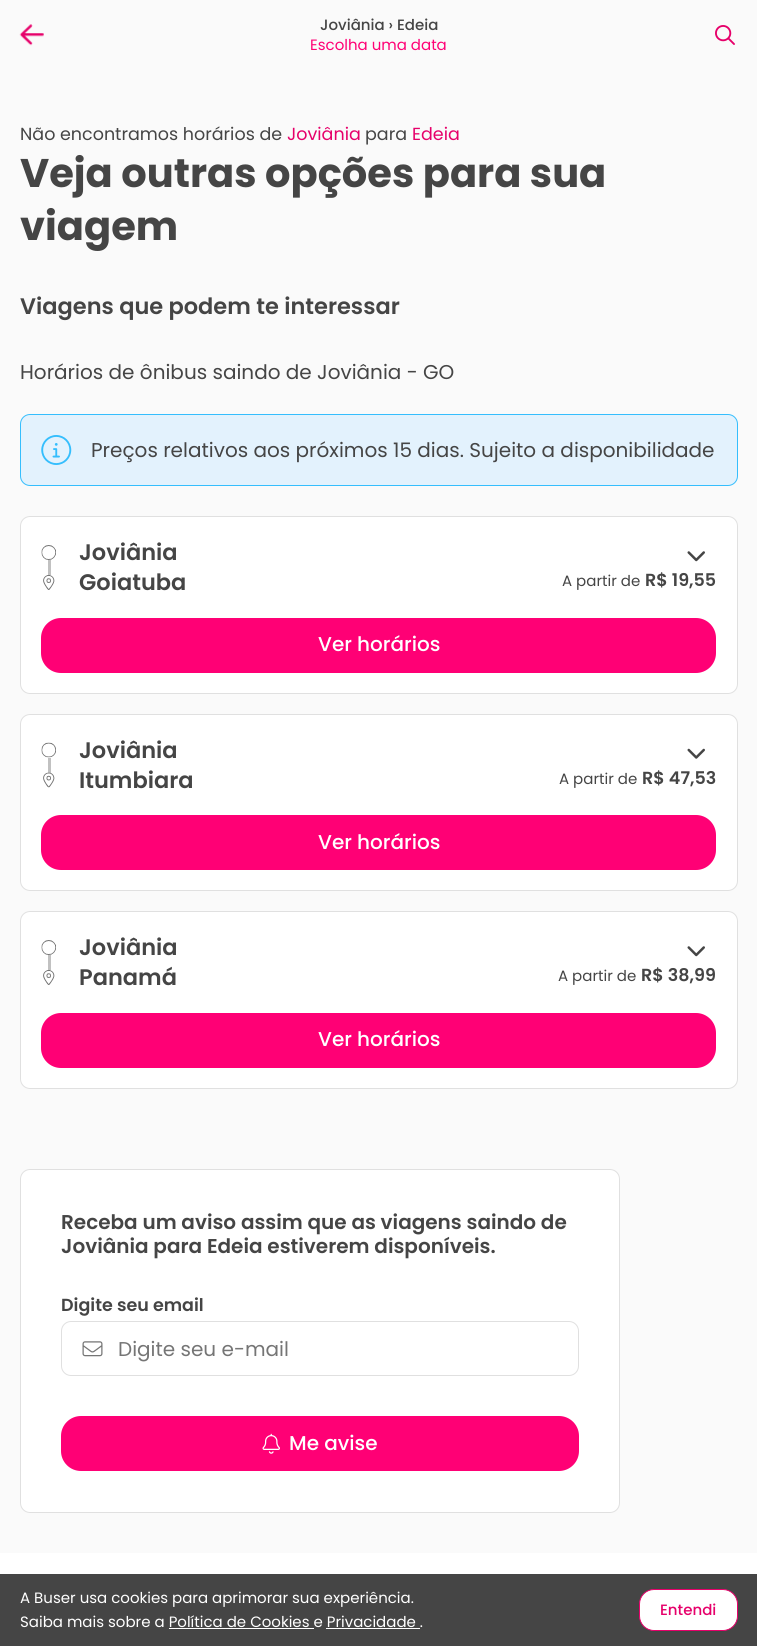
import math
import cairo



def rounded_rect(context, x, y, w, h, r):
    context.new_sub_path()
    for i, (u, v) in enumerate([(x + w - r, y + h - r), (x + r, y + h - r), (x + r, y + r), (x + w - r, y + r)]):
        context.arc(u, v, r, i * math.pi / 2, (i + 1) * math.pi / 2)
    context.close_path()


def draw_image(context, path, x, y, w, h):
    context.save()
    context.set_source_surface(cairo.ImageSurface.create_from_png(path), x, y)
    context.rectangle(x, y, w, h)
    context.fill()
    context.restore()


def draw(context):
    context.set_source_rgb(250 / 255, 250 / 255, 250 / 255)
    context.paint()
    draw_image(context, "images/1.png", 19, 24, 25, 22)
    draw_image(context, "images/2.png", 715, 25, 20, 20)
    context.set_source_rgb(227 / 255, 242 / 255, 253 / 255)
    rounded_rect(context, 20.5, 414.5, 717, 71, 9.5)
    context.fill_preserve()
    context.set_source_rgb(53 / 255, 190 / 255, 253 / 255)
    context.set_line_width(1)
    context.stroke()
    draw_image(context, "images/3.png", 41, 435, 31, 30)
    context.set_source_rgb(1, 1, 1)
    rounded_rect(context, 20.5, 516.5, 717, 177, 9.5)
    context.fill_preserve()
    context.set_source_rgb(224 / 255, 224 / 255, 224 / 255)
    context.stroke()
    context.set_source_rgb(193 / 255, 193 / 255, 193 / 255)
    context.rectangle(48, 553, 3, 30)
    context.fill()
    context.set_source_rgb(1, 1, 1)
    context.rectangle(48, 553, 3, 7)
    context.fill()
    draw_image(context, "images/4.png", 41, 545, 15, 15)
    context.rectangle(48, 575, 3, 8)
    context.fill()
    draw_image(context, "images/5.png", 43, 575, 12, 15)
    draw_image(context, "images/6.png", 687, 551, 18, 11)
    context.set_source_rgb(1, 0, 117 / 255)
    rounded_rect(context, 41, 618, 675, 55, 20)
    context.fill()
    context.set_source_rgb(1, 1, 1)
    rounded_rect(context, 20.5, 714.5, 717, 176, 9.5)
    context.fill_preserve()
    context.set_source_rgb(224 / 255, 224 / 255, 224 / 255)
    context.stroke()
    context.set_source_rgb(193 / 255, 193 / 255, 193 / 255)
    context.rectangle(48, 750, 3, 30)
    context.fill()
    context.set_source_rgb(1, 1, 1)
    context.rectangle(48, 750, 3, 8)
    context.fill()
    draw_image(context, "images/7.png", 41, 742, 15, 16)
    context.rectangle(48, 773, 3, 7)
    context.fill()
    draw_image(context, "images/8.png", 43, 772, 12, 16)
    draw_image(context, "images/9.png", 687, 748, 18, 11)
    context.set_source_rgb(1, 0, 117 / 255)
    rounded_rect(context, 41, 815, 675, 55, 20)
    context.fill()
    context.set_source_rgb(1, 1, 1)
    rounded_rect(context, 20.5, 911.5, 717, 177, 9.5)
    context.fill_preserve()
    context.set_source_rgb(224 / 255, 224 / 255, 224 / 255)
    context.stroke()
    context.set_source_rgb(193 / 255, 193 / 255, 193 / 255)
    context.rectangle(48, 948, 3, 30)
    context.fill()
    context.set_source_rgb(1, 1, 1)
    context.rectangle(48, 948, 3, 7)
    context.fill()
    draw_image(context, "images/4.png", 41, 940, 15, 15)
    context.rectangle(48, 970, 3, 8)
    context.fill()
    draw_image(context, "images/5.png", 43, 970, 12, 15)
    draw_image(context, "images/6.png", 687, 946, 18, 11)
    context.set_source_rgb(1, 0, 117 / 255)
    rounded_rect(context, 41, 1013, 675, 55, 20)
    context.fill()
    context.set_source_rgb(1, 1, 1)
    rounded_rect(context, 20.5, 1169.5, 599, 343, 9.5)
    context.fill_preserve()
    context.set_source_rgb(224 / 255, 224 / 255, 224 / 255)
    context.stroke()
    rounded_rect(context, 61.5, 1321.5, 517, 54, 9.5)
    context.stroke()
    draw_image(context, "images/10.png", 82, 1341, 21, 16)
    context.set_source_rgb(1, 0, 117 / 255)
    rounded_rect(context, 61, 1416, 518, 55, 20)
    context.fill()
    draw_image(context, "images/11.png", 262, 1433, 18, 21)
    context.set_source_rgb(1, 1, 1)
    context.rectangle(0, 1553, 757, 21)
    context.fill()
    context.set_source_rgb(69 / 255, 69 / 255, 69 / 255)
    context.rectangle(0, 1574, 757, 72)
    context.fill()
    context.set_source_rgb(1, 1, 1)
    rounded_rect(context, 639.5, 1589.5, 98, 41, 14.5)
    context.fill_preserve()
    context.set_source_rgb(230 / 255, 0, 106 / 255)
    context.stroke()
    context.set_source_rgb(1, 1, 1)
    context.rectangle(169, 1628, 145, 1)
    context.fill()
    context.rectangle(326, 1628, 94, 1)
    context.fill()
    context.select_font_face("Poppins Medium")
    context.set_font_size(15)
    context.set_source_rgb(69 / 255, 69 / 255, 69 / 255)
    context.move_to(320, 30)
    context.show_text("Joviânia › Edeia")
    context.select_font_face("Poppins")
    context.set_source_rgb(1, 0, 117 / 255)
    context.move_to(310, 50)
    context.show_text("Escolha uma data")
    context.set_font_size(17.5)
    context.set_source_rgb(69 / 255, 69 / 255, 69 / 255)
    context.move_to(20, 140)
    context.show_text("Não encontramos horários de")
    context.set_source_rgb(230 / 255, 0, 106 / 255)
    context.move_to(287, 140)
    context.show_text("Joviânia")
    context.set_source_rgb(69 / 255, 69 / 255, 69 / 255)
    context.move_to(365, 140)
    context.show_text("para")
    context.set_source_rgb(230 / 255, 0, 106 / 255)
    context.move_to(412, 140)
    context.show_text("Edeia")
    context.select_font_face("Poppins", cairo.FontSlant.NORMAL, cairo.FontWeight.BOLD)
    context.set_font_size(40)
    context.set_source_rgb(69 / 255, 69 / 255, 69 / 255)
    context.move_to(20, 187)
    context.show_text("Veja outras opções para sua")
    context.move_to(20, 240)
    context.show_text("viagem")
    context.select_font_face("Poppins SemiBold")
    context.set_font_size(22.5)
    context.move_to(20, 314)
    context.show_text("Viagens que podem te interessar")
    context.select_font_face("Poppins")
    context.set_font_size(20)
    context.move_to(20, 379)
    context.show_text("Horários de ônibus saindo de Joviânia - GO")
    context.move_to(91, 457)
    context.show_text("Preços relativos aos próximos 15 dias. Sujeito a disponibilidade")
    context.select_font_face("Poppins SemiBold")
    context.set_font_size(22.5)
    context.move_to(79, 560)
    context.show_text("Joviânia")
    context.move_to(79, 590)
    context.show_text("Goiatuba")
    context.select_font_face("Poppins")
    context.set_font_size(15)
    context.move_to(562, 586)
    context.show_text("A partir de")
    context.select_font_face("Poppins SemiBold")
    context.set_font_size(17.5)
    context.move_to(645, 586)
    context.show_text("R$ 19,55")
    context.select_font_face("Poppins Medium")
    context.set_font_size(20)
    context.set_source_rgb(1, 1, 1)
    context.move_to(318, 651)
    context.show_text("Ver horários")
    context.select_font_face("Poppins SemiBold")
    context.set_font_size(22.5)
    context.set_source_rgb(69 / 255, 69 / 255, 69 / 255)
    context.move_to(79, 758)
    context.show_text("Joviânia")
    context.move_to(79, 788)
    context.show_text("Itumbiara")
    context.select_font_face("Poppins")
    context.set_font_size(15)
    context.move_to(559, 784)
    context.show_text("A partir de")
    context.select_font_face("Poppins SemiBold")
    context.set_font_size(17.5)
    context.move_to(642, 784)
    context.show_text("R$ 47,53")
    context.select_font_face("Poppins Medium")
    context.set_font_size(20)
    context.set_source_rgb(1, 1, 1)
    context.move_to(318, 849)
    context.show_text("Ver horários")
    context.select_font_face("Poppins SemiBold")
    context.set_font_size(22.5)
    context.set_source_rgb(69 / 255, 69 / 255, 69 / 255)
    context.move_to(79, 955)
    context.show_text("Joviânia")
    context.move_to(79, 985)
    context.show_text("Panamá")
    context.select_font_face("Poppins")
    context.set_font_size(15)
    context.move_to(558, 981)
    context.show_text("A partir de")
    context.select_font_face("Poppins SemiBold")
    context.set_font_size(17.5)
    context.move_to(641, 981)
    context.show_text("R$ 38,99")
    context.select_font_face("Poppins Medium")
    context.set_font_size(20)
    context.set_source_rgb(1, 1, 1)
    context.move_to(318, 1046)
    context.show_text("Ver horários")
    context.select_font_face("Poppins SemiBold")
    context.set_source_rgb(69 / 255, 69 / 255, 69 / 255)
    context.move_to(61, 1229)
    context.show_text("Receba um aviso assim que as viagens saindo de")
    context.move_to(61, 1253)
    context.show_text("Joviânia para Edeia estiverem disponíveis.")
    context.set_font_size(17.5)
    context.move_to(61, 1311)
    context.show_text("Digite seu email")
    context.select_font_face("Poppins")
    context.set_font_size(20)
    context.set_source_rgb(117 / 255, 117 / 255, 117 / 255)
    context.move_to(118, 1356)
    context.show_text("Digite seu e-mail")
    context.select_font_face("Poppins Medium")
    context.set_source_rgb(1, 1, 1)
    context.move_to(289, 1450)
    context.show_text("Me avise")
    context.select_font_face("Poppins")
    context.set_font_size(15)
    context.move_to(20, 1603)
    context.show_text("A Buser usa cookies para aprimorar sua experiência.")
    context.select_font_face("Poppins Medium")
    context.set_source_rgb(230 / 255, 0, 106 / 255)
    context.move_to(660, 1615)
    context.show_text("Entendi")
    context.select_font_face("Poppins")
    context.set_source_rgb(1, 1, 1)
    context.move_to(20, 1627)
    context.show_text("Saiba mais sobre a Política de Cookies e Privacidade .")


surface = cairo.ImageSurface(cairo.Format.RGB24, 757, 1646)
context = cairo.Context(surface)
options = cairo.FontOptions()
options.set_hint_metrics(cairo.HintMetrics.OFF)
options.set_hint_style(cairo.HintStyle.NONE)
context.set_font_options(options)
context.set_miter_limit(4)
draw(context)
surface.write_to_png("out.png")
